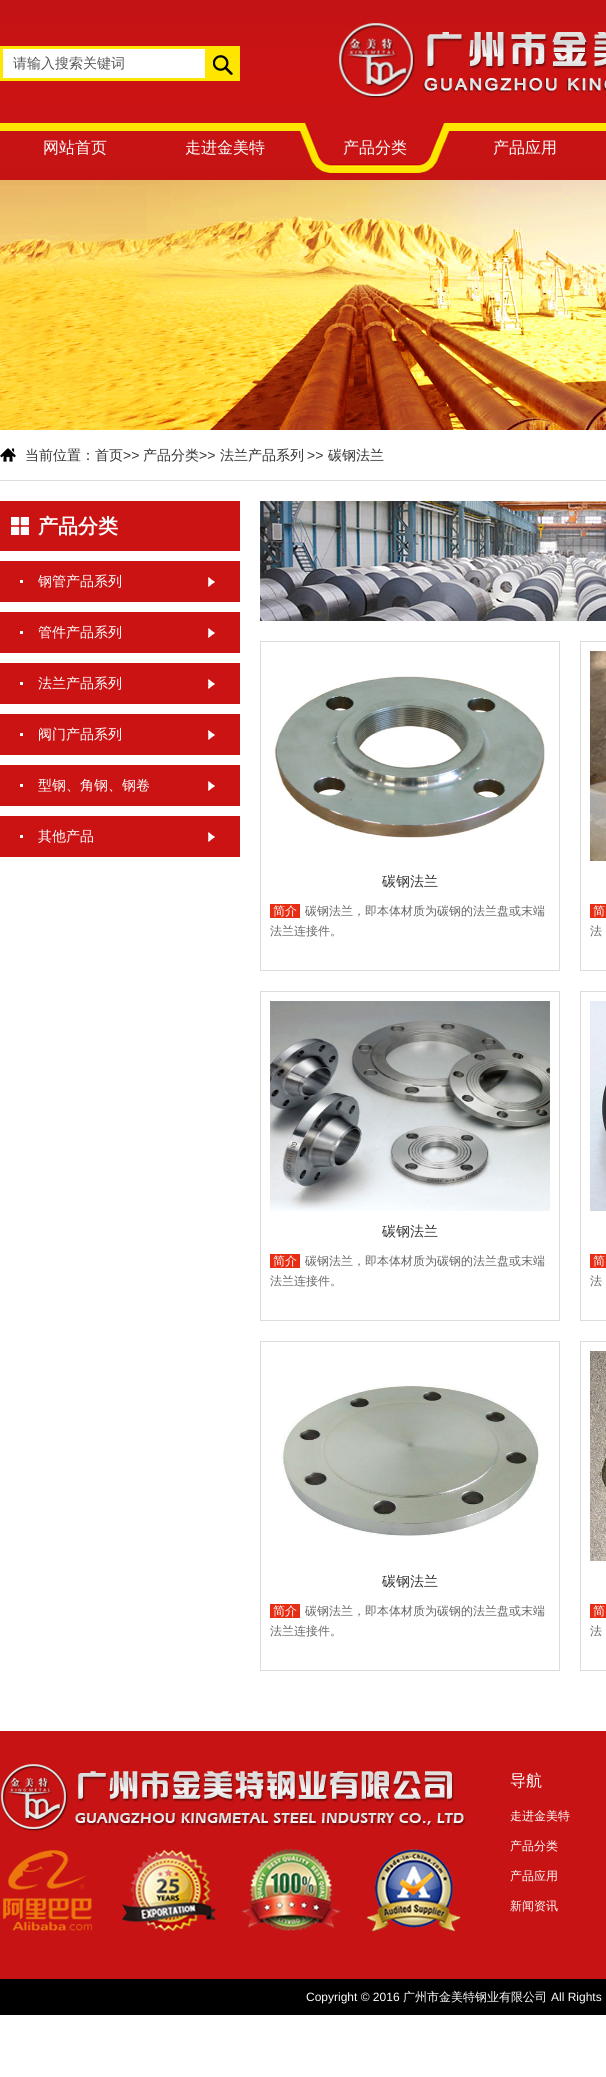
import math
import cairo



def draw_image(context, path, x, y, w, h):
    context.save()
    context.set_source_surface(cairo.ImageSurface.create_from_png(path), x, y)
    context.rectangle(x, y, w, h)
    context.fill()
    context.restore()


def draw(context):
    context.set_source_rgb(1, 1, 1)
    context.paint()
    draw_image(context, "images/1.png", 0, 0, 606, 180)
    context.set_source_rgb(1, 1, 1)
    context.rectangle(3, 49, 202, 29)
    context.fill()
    context.set_source_rgb(1, 230 / 255, 0)
    context.rectangle(0, 46, 205, 3)
    context.fill()
    context.rectangle(0, 78, 205, 3)
    context.fill()
    context.rectangle(0, 46, 3, 35)
    context.fill()
    draw_image(context, "images/2.png", 205, 46, 35, 35)
    draw_image(context, "images/3.png", 339, 23, 267, 75)
    draw_image(context, "images/4.png", 300, 123, 150, 50)
    draw_image(context, "images/5.png", 0, 180, 606, 250)
    context.set_source_rgb(221 / 255, 221 / 255, 221 / 255)
    context.rectangle(0, 480, 606, 1)
    context.fill()
    draw_image(context, "images/6.png", 0, 448, 16, 14)
    context.set_source_rgb(203 / 255, 19 / 255, 20 / 255)
    context.rectangle(0, 501, 240, 50)
    context.fill()
    draw_image(context, "images/7.png", 11, 517, 18, 18)
    context.rectangle(0, 561, 240, 41)
    context.fill()
    draw_image(context, "images/8.png", 208, 577, 7, 10)
    context.set_source_rgb(1, 1, 1)
    context.rectangle(20, 580, 3, 3)
    context.fill()
    context.set_source_rgb(203 / 255, 19 / 255, 20 / 255)
    context.rectangle(0, 612, 240, 41)
    context.fill()
    draw_image(context, "images/8.png", 208, 628, 7, 10)
    context.set_source_rgb(1, 1, 1)
    context.rectangle(20, 631, 3, 3)
    context.fill()
    context.set_source_rgb(203 / 255, 19 / 255, 20 / 255)
    context.rectangle(0, 663, 240, 41)
    context.fill()
    draw_image(context, "images/8.png", 208, 679, 7, 10)
    context.set_source_rgb(1, 1, 1)
    context.rectangle(20, 682, 3, 3)
    context.fill()
    context.set_source_rgb(203 / 255, 19 / 255, 20 / 255)
    context.rectangle(0, 714, 240, 41)
    context.fill()
    draw_image(context, "images/8.png", 208, 730, 7, 10)
    context.set_source_rgb(1, 1, 1)
    context.rectangle(20, 733, 3, 3)
    context.fill()
    context.set_source_rgb(203 / 255, 19 / 255, 20 / 255)
    context.rectangle(0, 765, 240, 41)
    context.fill()
    draw_image(context, "images/8.png", 208, 781, 7, 10)
    context.set_source_rgb(1, 1, 1)
    context.rectangle(20, 784, 3, 3)
    context.fill()
    context.set_source_rgb(203 / 255, 19 / 255, 20 / 255)
    context.rectangle(0, 816, 240, 41)
    context.fill()
    draw_image(context, "images/8.png", 208, 832, 7, 10)
    context.set_source_rgb(1, 1, 1)
    context.rectangle(20, 835, 3, 3)
    context.fill()
    draw_image(context, "images/9.png", 260, 501, 346, 120)
    context.rectangle(260.5, 641.5, 299, 329)
    context.set_source_rgb(221 / 255, 221 / 255, 221 / 255)
    context.set_line_width(1)
    context.stroke()
    draw_image(context, "images/10.png", 274, 676, 271, 162)
    context.set_source_rgb(231 / 255, 45 / 255, 20 / 255)
    context.rectangle(270, 904, 30, 14)
    context.fill()
    context.rectangle(580.5, 641.5, 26, 329)
    context.set_source_rgb(221 / 255, 221 / 255, 221 / 255)
    context.stroke()
    draw_image(context, "images/11.png", 590, 651, 16, 210)
    context.set_source_rgb(231 / 255, 45 / 255, 20 / 255)
    context.rectangle(590, 904, 16, 14)
    context.fill()
    context.rectangle(260.5, 991.5, 299, 329)
    context.set_source_rgb(221 / 255, 221 / 255, 221 / 255)
    context.stroke()
    draw_image(context, "images/12.png", 270, 1001, 280, 210)
    context.set_source_rgb(231 / 255, 45 / 255, 20 / 255)
    context.rectangle(270, 1254, 30, 14)
    context.fill()
    context.rectangle(580.5, 991.5, 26, 329)
    context.set_source_rgb(221 / 255, 221 / 255, 221 / 255)
    context.stroke()
    draw_image(context, "images/13.png", 590, 1001, 16, 210)
    context.set_source_rgb(231 / 255, 45 / 255, 20 / 255)
    context.rectangle(590, 1254, 16, 14)
    context.fill()
    context.rectangle(260.5, 1341.5, 299, 329)
    context.set_source_rgb(221 / 255, 221 / 255, 221 / 255)
    context.stroke()
    draw_image(context, "images/14.png", 281, 1385, 258, 151)
    context.set_source_rgb(231 / 255, 45 / 255, 20 / 255)
    context.rectangle(270, 1604, 30, 14)
    context.fill()
    context.rectangle(580.5, 1341.5, 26, 329)
    context.set_source_rgb(221 / 255, 221 / 255, 221 / 255)
    context.stroke()
    draw_image(context, "images/15.png", 590, 1351, 16, 210)
    context.set_source_rgb(231 / 255, 45 / 255, 20 / 255)
    context.rectangle(590, 1604, 16, 14)
    context.fill()
    context.set_source_rgb(200 / 255, 19 / 255, 20 / 255)
    context.rectangle(0, 1731, 606, 248)
    context.fill()
    draw_image(context, "images/16.png", 1, 1764, 465, 67)
    draw_image(context, "images/17.png", 2, 1850, 90, 81)
    draw_image(context, "images/18.png", 122, 1850, 94, 81)
    draw_image(context, "images/19.png", 241, 1848, 100, 83)
    draw_image(context, "images/20.png", 366, 1849, 95, 83)
    context.set_source_rgb(0, 0, 0)
    context.rectangle(0, 1979, 606, 36)
    context.fill()
    context.select_font_face("WenQuanYi Zen Hei Medium")
    context.set_font_size(14)
    context.set_source_rgb(85 / 255, 85 / 255, 85 / 255)
    context.move_to(13, 68)
    context.show_text("请输入搜索关键词")
    context.set_font_size(16)
    context.set_source_rgb(1, 1, 1)
    context.move_to(43, 153)
    context.show_text("网站首页")
    context.move_to(185, 153)
    context.show_text("走进金美特")
    context.move_to(343, 153)
    context.show_text("产品分类")
    context.move_to(493, 153)
    context.show_text("产品应用")
    context.set_font_size(14)
    context.set_source_rgb(51 / 255, 51 / 255, 51 / 255)
    context.move_to(25, 460)
    context.show_text("当前位置：首页")
    context.select_font_face("Liberation Sans")
    context.move_to(123, 460)
    context.show_text(">>")
    context.select_font_face("WenQuanYi Zen Hei Medium")
    context.move_to(143, 460)
    context.show_text("产品分类")
    context.select_font_face("Liberation Sans")
    context.move_to(199, 460)
    context.show_text(">>")
    context.select_font_face("WenQuanYi Zen Hei Medium")
    context.move_to(220, 460)
    context.show_text("法兰产品系列")
    context.select_font_face("Liberation Sans")
    context.move_to(307, 460)
    context.show_text(">>")
    context.select_font_face("WenQuanYi Zen Hei Medium")
    context.move_to(328, 460)
    context.show_text("碳钢法兰")
    context.select_font_face("WenQuanYi Zen Hei", cairo.FontSlant.NORMAL, cairo.FontWeight.BOLD)
    context.set_font_size(20)
    context.set_source_rgb(1, 1, 1)
    context.move_to(38, 533)
    context.show_text("产品分类")
    context.select_font_face("WenQuanYi Zen Hei Medium")
    context.set_font_size(14)
    context.move_to(38, 586)
    context.show_text("钢管产品系列")
    context.move_to(38, 637)
    context.show_text("管件产品系列")
    context.move_to(38, 688)
    context.show_text("法兰产品系列")
    context.move_to(38, 739)
    context.show_text("阀门产品系列")
    context.move_to(38, 790)
    context.show_text("型钢、角钢、钢卷")
    context.move_to(38, 841)
    context.show_text("其他产品")
    context.set_source_rgb(51 / 255, 51 / 255, 51 / 255)
    context.move_to(382, 886)
    context.show_text("碳钢法兰")
    context.set_font_size(12)
    context.set_source_rgb(1, 1, 1)
    context.move_to(273, 915)
    context.show_text("简介")
    context.set_source_rgb(102 / 255, 102 / 255, 102 / 255)
    context.move_to(305, 915)
    context.show_text("碳钢法兰，即本体材质为碳钢的法兰盘或末端")
    context.move_to(270, 935)
    context.show_text("法兰连接件。")
    context.set_source_rgb(1, 1, 1)
    context.move_to(593, 915)
    context.show_text("简")
    context.set_source_rgb(102 / 255, 102 / 255, 102 / 255)
    context.move_to(590, 935)
    context.show_text("法")
    context.set_font_size(14)
    context.set_source_rgb(51 / 255, 51 / 255, 51 / 255)
    context.move_to(382, 1236)
    context.show_text("碳钢法兰")
    context.set_font_size(12)
    context.set_source_rgb(1, 1, 1)
    context.move_to(273, 1265)
    context.show_text("简介")
    context.set_source_rgb(102 / 255, 102 / 255, 102 / 255)
    context.move_to(305, 1265)
    context.show_text("碳钢法兰，即本体材质为碳钢的法兰盘或末端")
    context.move_to(270, 1285)
    context.show_text("法兰连接件。")
    context.set_source_rgb(1, 1, 1)
    context.move_to(593, 1265)
    context.show_text("简")
    context.set_source_rgb(102 / 255, 102 / 255, 102 / 255)
    context.move_to(590, 1285)
    context.show_text("法")
    context.set_font_size(14)
    context.set_source_rgb(51 / 255, 51 / 255, 51 / 255)
    context.move_to(382, 1586)
    context.show_text("碳钢法兰")
    context.set_font_size(12)
    context.set_source_rgb(1, 1, 1)
    context.move_to(273, 1615)
    context.show_text("简介")
    context.set_source_rgb(102 / 255, 102 / 255, 102 / 255)
    context.move_to(305, 1615)
    context.show_text("碳钢法兰，即本体材质为碳钢的法兰盘或末端")
    context.move_to(270, 1635)
    context.show_text("法兰连接件。")
    context.set_source_rgb(1, 1, 1)
    context.move_to(593, 1615)
    context.show_text("简")
    context.set_source_rgb(102 / 255, 102 / 255, 102 / 255)
    context.move_to(590, 1635)
    context.show_text("法")
    context.set_font_size(16)
    context.set_source_rgb(1, 1, 1)
    context.move_to(510, 1786)
    context.show_text("导航")
    context.set_font_size(12)
    context.move_to(510, 1820)
    context.show_text("走进金美特")
    context.move_to(510, 1850)
    context.show_text("产品分类")
    context.move_to(510, 1880)
    context.show_text("产品应用")
    context.move_to(510, 1910)
    context.show_text("新闻资讯")
    context.select_font_face("Liberation Sans")
    context.move_to(306, 2001)
    context.show_text("Copyright © 2016")
    context.select_font_face("WenQuanYi Zen Hei Medium")
    context.move_to(403, 2001)
    context.show_text("广州市金美特钢业有限公司")
    context.select_font_face("Liberation Sans")
    context.move_to(551, 2001)
    context.show_text("All Rights")


surface = cairo.ImageSurface(cairo.Format.RGB24, 606, 2077)
context = cairo.Context(surface)
options = cairo.FontOptions()
options.set_hint_metrics(cairo.HintMetrics.OFF)
options.set_hint_style(cairo.HintStyle.NONE)
context.set_font_options(options)
context.set_miter_limit(4)
draw(context)
surface.write_to_png("out.png")
